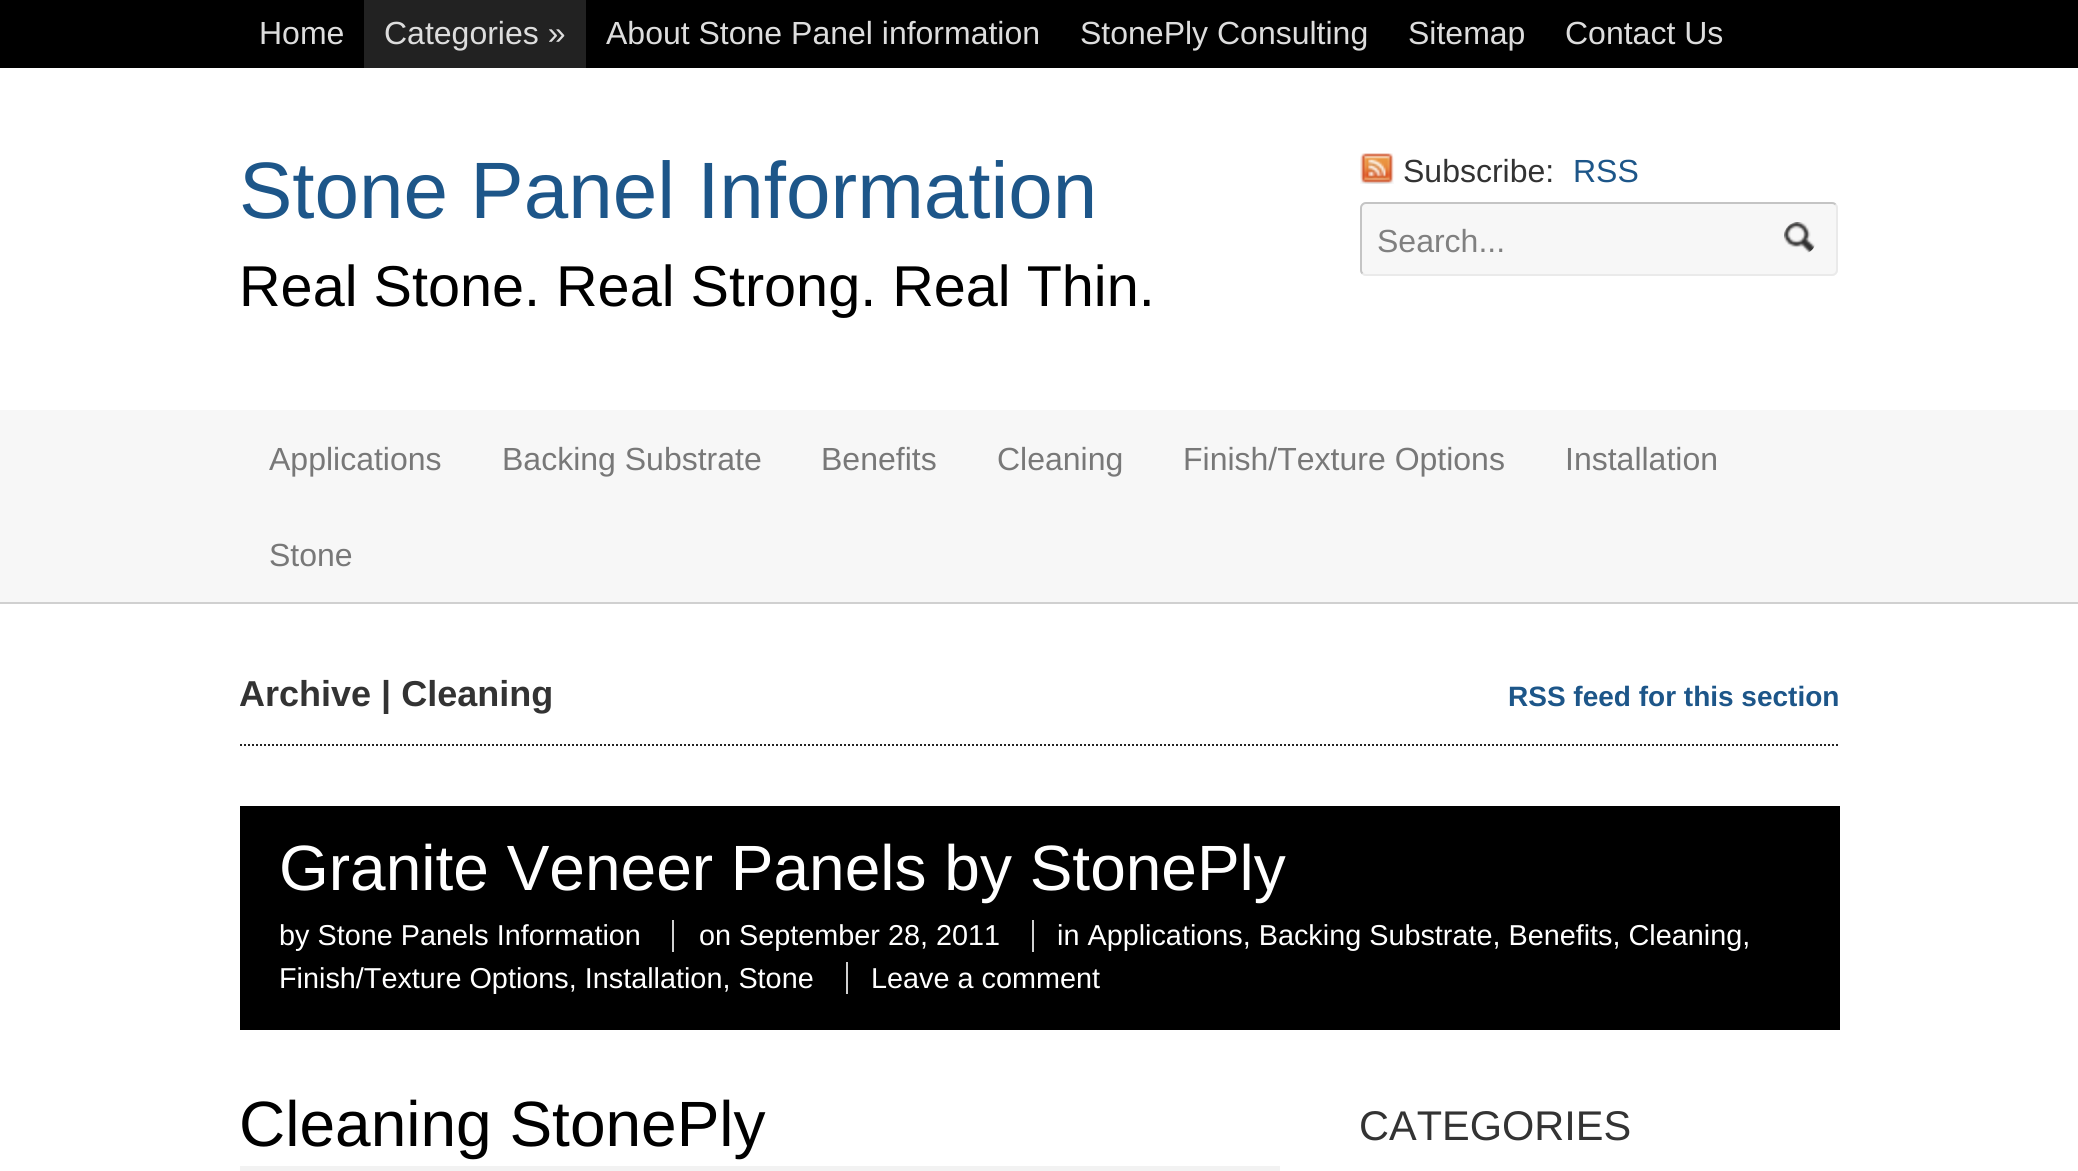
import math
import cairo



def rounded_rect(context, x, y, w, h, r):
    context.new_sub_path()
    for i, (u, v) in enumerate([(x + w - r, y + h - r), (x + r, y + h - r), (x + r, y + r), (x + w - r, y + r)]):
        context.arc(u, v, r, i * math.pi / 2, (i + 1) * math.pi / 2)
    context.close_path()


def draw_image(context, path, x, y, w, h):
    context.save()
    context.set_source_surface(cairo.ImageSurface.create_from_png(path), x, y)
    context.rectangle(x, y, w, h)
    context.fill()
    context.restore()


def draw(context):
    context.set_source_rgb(1, 1, 1)
    context.paint()
    context.set_source_rgb(0, 0, 0)
    context.rectangle(0, 0, 2078, 68)
    context.fill()
    context.set_source_rgb(34 / 255, 34 / 255, 34 / 255)
    context.rectangle(364, 0, 222, 68)
    context.fill()
    draw_image(context, "images/1.png", 1360, 153, 34, 31)
    context.set_source_rgb(247 / 255, 247 / 255, 247 / 255)
    rounded_rect(context, 1360, 202, 478, 74, 6)
    context.fill()
    context.new_path()
    context.move_to(1835.5, 204.5)
    context.curve_to(1836.5, 205.5, 1837, 206.5, 1837, 208)
    context.line_to(1837, 270)
    context.curve_to(1837, 271.5, 1836.5, 272.5, 1835.5, 273.5)
    context.curve_to(1834.5, 274.5, 1833.5, 275, 1832, 275)
    context.line_to(1366, 275)
    context.curve_to(1364.5, 275, 1363.5, 274.5, 1362.5, 273.5)
    context.set_source_rgb(234 / 255, 234 / 255, 234 / 255)
    context.stroke()
    context.new_path()
    context.move_to(1362.5, 273.5)
    context.curve_to(1361.5, 272.5, 1361, 271.5, 1361, 270)
    context.line_to(1361, 208)
    context.curve_to(1361, 206.5, 1361.5, 205.5, 1362.5, 204.5)
    context.curve_to(1363.5, 203.5, 1364.5, 203, 1366, 203)
    context.line_to(1832, 203)
    context.curve_to(1833.5, 203, 1834.5, 203.5, 1835.5, 204.5)
    context.set_source_rgb(196 / 255, 196 / 255, 196 / 255)
    context.stroke()
    draw_image(context, "images/2.png", 1784, 222, 31, 31)
    context.set_source_rgb(247 / 255, 247 / 255, 247 / 255)
    context.rectangle(0, 410, 2078, 192)
    context.fill()
    context.set_source_rgb(208 / 255, 208 / 255, 208 / 255)
    context.rectangle(0, 602, 2078, 2)
    context.fill()
    context.new_path()
    context.move_to(240, 745)
    context.line_to(1840, 745)
    context.set_source_rgb(34 / 255, 34 / 255, 34 / 255)
    context.set_dash([2, 2])
    context.stroke()
    context.set_source_rgb(0, 0, 0)
    context.rectangle(240, 806, 1600, 224)
    context.fill()
    context.set_source_rgb(208 / 255, 208 / 255, 208 / 255)
    context.rectangle(672, 920, 2, 32)
    context.fill()
    context.rectangle(1032, 920, 2, 32)
    context.fill()
    context.rectangle(846, 962, 2, 32)
    context.fill()
    context.set_source_rgb(242 / 255, 242 / 255, 242 / 255)
    context.rectangle(240, 1166, 1040, 5)
    context.fill()
    context.select_font_face("Liberation Sans")
    context.set_font_size(32)
    context.set_source_rgb(221 / 255, 221 / 255, 221 / 255)
    context.move_to(259, 44)
    context.show_text("Home")
    context.move_to(384, 44)
    context.show_text("Categories »")
    context.move_to(606, 44)
    context.show_text("About Stone Panel information")
    context.move_to(1080, 44)
    context.show_text("StonePly Consulting")
    context.move_to(1408, 44)
    context.show_text("Sitemap")
    context.move_to(1565, 44)
    context.show_text("Contact Us")
    context.set_font_size(80)
    context.set_source_rgb(29 / 255, 86 / 255, 137 / 255)
    context.move_to(239, 218)
    context.show_text("Stone Panel Information")
    context.set_font_size(57.6)
    context.set_source_rgb(0, 0, 0)
    context.move_to(239, 306)
    context.show_text("Real Stone. Real Strong. Real Thin.")
    context.set_font_size(32)
    context.set_source_rgb(51 / 255, 51 / 255, 51 / 255)
    context.move_to(1403, 182)
    context.show_text("Subscribe:")
    context.set_source_rgb(29 / 255, 86 / 255, 137 / 255)
    context.move_to(1573, 182)
    context.show_text("RSS")
    context.set_source_rgb(128 / 255, 128 / 255, 128 / 255)
    context.move_to(1377, 252)
    context.show_text("Search...")
    context.set_source_rgb(120 / 255, 120 / 255, 120 / 255)
    context.move_to(269, 470)
    context.show_text("Applications")
    context.move_to(502, 470)
    context.show_text("Backing Substrate")
    context.move_to(821, 470)
    context.show_text("Benefits")
    context.move_to(997, 470)
    context.show_text("Cleaning")
    context.move_to(1183, 470)
    context.show_text("Finish/Texture Options")
    context.move_to(1565, 470)
    context.show_text("Installation")
    context.move_to(269, 566)
    context.show_text("Stone")
    context.select_font_face("Liberation Sans", cairo.FontSlant.NORMAL, cairo.FontWeight.BOLD)
    context.set_font_size(36)
    context.set_source_rgb(51 / 255, 51 / 255, 51 / 255)
    context.move_to(239, 706)
    context.show_text("Archive | Cleaning")
    context.set_font_size(28)
    context.set_source_rgb(29 / 255, 86 / 255, 137 / 255)
    context.move_to(1508, 706)
    context.show_text("RSS feed for this section")
    context.select_font_face("Liberation Sans")
    context.set_font_size(64)
    context.set_source_rgb(1, 1, 1)
    context.move_to(279, 890)
    context.show_text("Granite Veneer Panels by StonePly")
    context.set_font_size(28.8)
    context.move_to(279, 945)
    context.show_text("by Stone Panels Information")
    context.move_to(699, 945)
    context.show_text("on September 28, 2011")
    context.move_to(1057, 945)
    context.show_text("in Applications, Backing Substrate, Benefits, Cleaning,")
    context.move_to(279, 988)
    context.show_text("Finish/Texture Options, Installation, Stone")
    context.move_to(871, 988)
    context.show_text("Leave a comment")
    context.set_font_size(64)
    context.set_source_rgb(0, 0, 0)
    context.move_to(239, 1146)
    context.show_text("Cleaning StonePly")
    context.set_font_size(41.5)
    context.set_source_rgb(51 / 255, 51 / 255, 51 / 255)
    context.move_to(1359, 1140)
    context.show_text("CATEGORIES")


surface = cairo.ImageSurface(cairo.Format.RGB24, 2078, 1171)
context = cairo.Context(surface)
options = cairo.FontOptions()
options.set_hint_metrics(cairo.HintMetrics.OFF)
options.set_hint_style(cairo.HintStyle.NONE)
context.set_font_options(options)
context.set_miter_limit(4)
draw(context)
surface.write_to_png("out.png")
